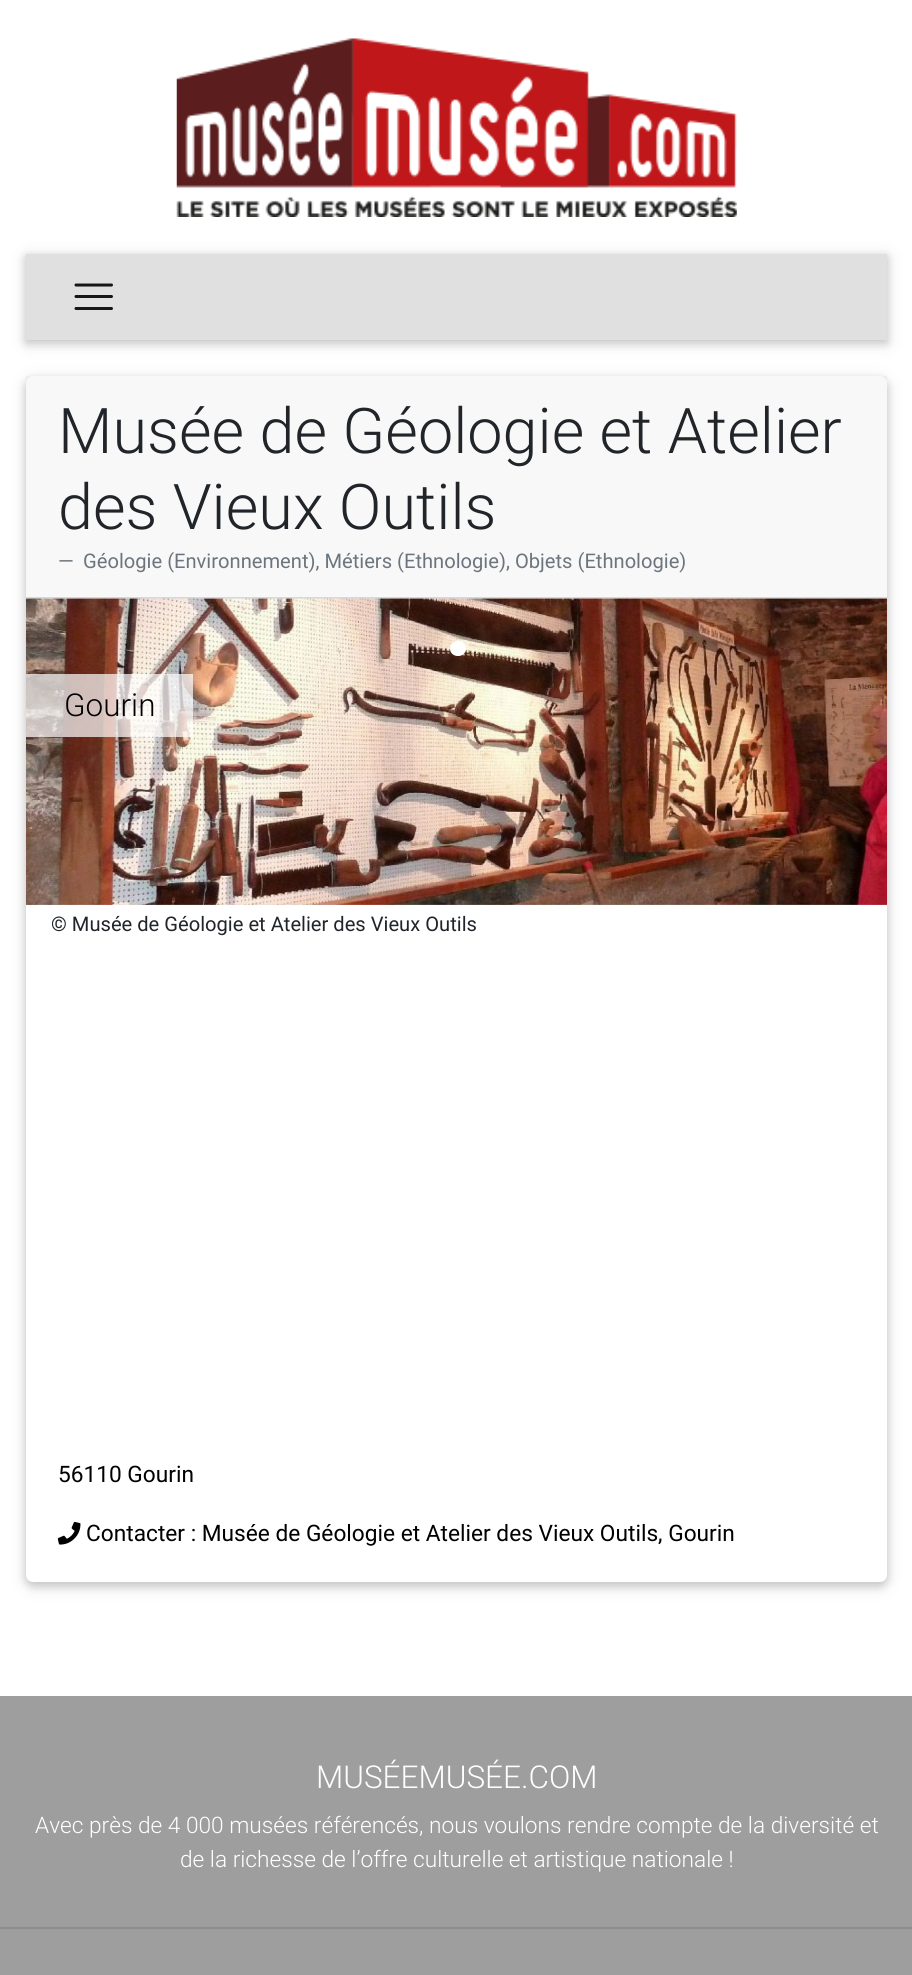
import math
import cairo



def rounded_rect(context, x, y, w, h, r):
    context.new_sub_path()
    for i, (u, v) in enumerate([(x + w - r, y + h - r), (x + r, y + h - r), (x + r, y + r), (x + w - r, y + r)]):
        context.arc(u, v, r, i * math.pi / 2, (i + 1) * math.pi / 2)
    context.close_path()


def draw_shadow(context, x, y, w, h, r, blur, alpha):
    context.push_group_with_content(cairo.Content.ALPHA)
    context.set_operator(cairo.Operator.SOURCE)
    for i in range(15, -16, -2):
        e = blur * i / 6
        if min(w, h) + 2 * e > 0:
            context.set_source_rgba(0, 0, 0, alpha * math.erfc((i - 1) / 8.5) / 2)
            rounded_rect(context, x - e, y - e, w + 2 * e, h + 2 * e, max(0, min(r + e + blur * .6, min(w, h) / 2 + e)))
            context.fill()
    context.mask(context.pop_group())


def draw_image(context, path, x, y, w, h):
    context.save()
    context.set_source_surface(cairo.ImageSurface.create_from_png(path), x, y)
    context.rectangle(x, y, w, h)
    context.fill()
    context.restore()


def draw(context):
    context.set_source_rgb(1, 1, 1)
    context.paint()
    draw_image(context, "images/1.png", 176, 38, 561, 179)
    context.set_source_rgb(0, 0, 0)
    draw_shadow(context, 26, 257, 861, 86, 0, 9, 0.12)
    draw_shadow(context, 26, 257, 861, 86, 0, 4.5, 0.16)
    context.set_source_rgb(224 / 255, 224 / 255, 224 / 255)
    context.rectangle(26, 254, 861, 86)
    context.fill()
    context.new_path()
    context.move_to(76, 285)
    context.line_to(111.5, 285)
    context.move_to(76, 296.5)
    context.line_to(111.5, 296.5)
    context.move_to(76, 308.5)
    context.line_to(111.5, 308.5)
    context.set_source_rgb(22 / 255, 22 / 255, 22 / 255)
    context.set_line_width(3)
    context.set_line_cap(cairo.LineCap.ROUND)
    context.stroke()
    context.set_source_rgb(0, 0, 0)
    draw_shadow(context, 26, 380, 861, 1206, 7, 9, 0.12)
    draw_shadow(context, 26, 380, 861, 1206, 7, 4.5, 0.16)
    context.set_source_rgb(1, 1, 1)
    rounded_rect(context, 26, 376, 861, 1206, 7)
    context.fill()
    context.set_source_rgba(0, 0, 0, 0.03)
    context.rectangle(26, 376, 861, 221)
    context.fill()
    context.set_source_rgb(216 / 255, 216 / 255, 216 / 255)
    context.rectangle(26, 597, 861, 2)
    context.fill()
    context.save()
    context.rectangle(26, 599, 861, 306)
    context.clip()
    context.set_source_rgb(0, 0, 0)
    draw_shadow(context, 26, 602, 861, 306, 7, 9, 0.12)
    draw_shadow(context, 26, 602, 861, 306, 7, 4.5, 0.16)
    context.restore()
    draw_image(context, "images/2.png", 26, 598, 861, 307)
    context.set_source_rgb(1, 1, 1)
    rounded_rect(context, 450, 641, 16, 15, 7.5)
    context.fill()
    context.set_source_rgba(1, 1, 1, 0.7)
    context.rectangle(26, 674, 167, 63)
    context.fill()
    draw_image(context, "images/3.png", 57, 1521, 24, 24)
    context.set_source_rgb(158 / 255, 158 / 255, 158 / 255)
    context.rectangle(0, 1696, 912, 279)
    context.fill()
    context.set_source_rgb(142 / 255, 142 / 255, 142 / 255)
    context.rectangle(0, 1927, 912, 2)
    context.fill()
    context.select_font_face("Roboto Light")
    context.set_font_size(63)
    context.set_source_rgb(33 / 255, 37 / 255, 41 / 255)
    context.move_to(58, 453)
    context.show_text("Musée de Géologie et Atelier")
    context.move_to(58, 529)
    context.show_text("des Vieux Outils")
    context.select_font_face("Roboto")
    context.set_font_size(20.15)
    context.set_source_rgb(108 / 255, 117 / 255, 125 / 255)
    context.move_to(58, 568)
    context.show_text("—")
    context.move_to(83, 568)
    context.show_text("Géologie (Environnement), Métiers (Ethnologie), Objets (Ethnologie)")
    context.select_font_face("Roboto Light")
    context.set_font_size(31.5)
    context.set_source_rgb(0, 0, 0)
    context.move_to(64, 716)
    context.show_text("Gourin")
    context.select_font_face("Roboto")
    context.set_font_size(20.15)
    context.set_source_rgb(33 / 255, 37 / 255, 41 / 255)
    context.move_to(51, 931)
    context.show_text("© Musée de Géologie et Atelier des Vieux Outils")
    context.set_font_size(22.7)
    context.set_source_rgb(0, 0, 0)
    context.move_to(58, 1482)
    context.show_text("56110 Gourin")
    context.move_to(86, 1541)
    context.show_text("Contacter : Musée de Géologie et Atelier des Vieux Outils, Gourin")
    context.select_font_face("Roboto Light")
    context.set_font_size(31.5)
    context.set_source_rgb(1, 1, 1)
    context.move_to(316, 1788)
    context.show_text("MUSÉEMUSÉE.COM")
    context.set_font_size(22.7)
    context.move_to(35, 1833)
    context.show_text("Avec près de 4 000 musées référencés, nous voulons rendre compte de la diversité et")
    context.move_to(180, 1867)
    context.show_text("de la richesse de l’offre culturelle et artistique nationale !")


surface = cairo.ImageSurface(cairo.Format.RGB24, 912, 1975)
context = cairo.Context(surface)
options = cairo.FontOptions()
options.set_hint_metrics(cairo.HintMetrics.OFF)
options.set_hint_style(cairo.HintStyle.NONE)
context.set_font_options(options)
context.set_miter_limit(4)
draw(context)
surface.write_to_png("out.png")
